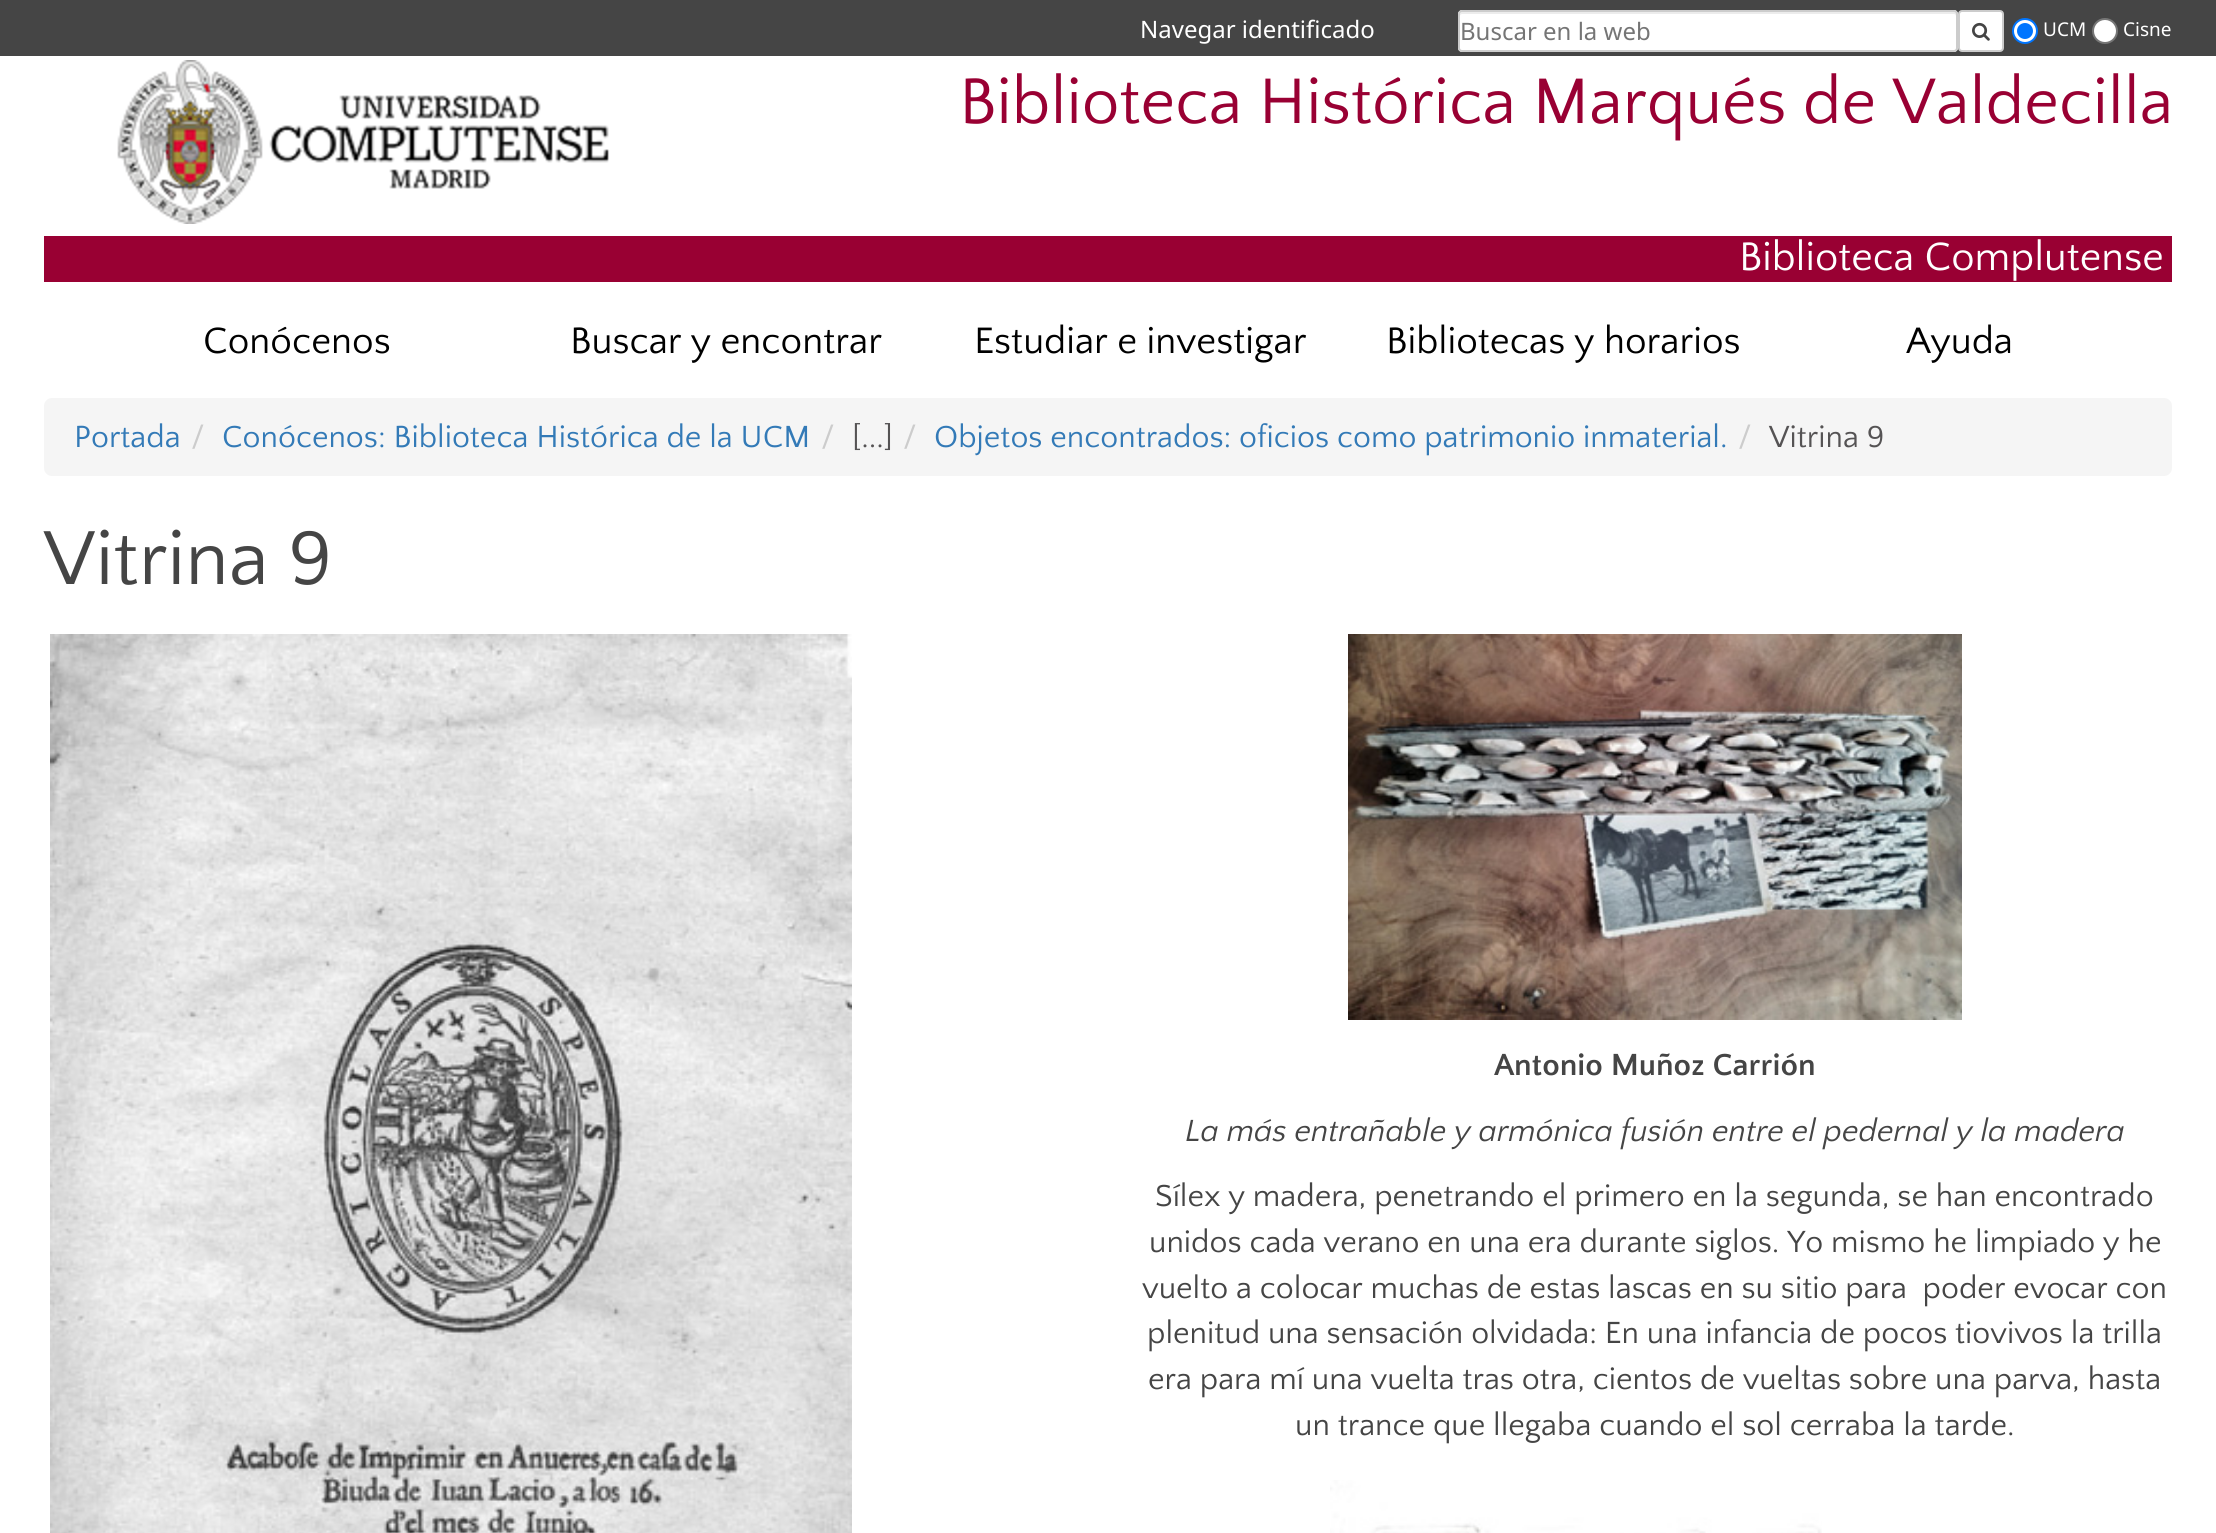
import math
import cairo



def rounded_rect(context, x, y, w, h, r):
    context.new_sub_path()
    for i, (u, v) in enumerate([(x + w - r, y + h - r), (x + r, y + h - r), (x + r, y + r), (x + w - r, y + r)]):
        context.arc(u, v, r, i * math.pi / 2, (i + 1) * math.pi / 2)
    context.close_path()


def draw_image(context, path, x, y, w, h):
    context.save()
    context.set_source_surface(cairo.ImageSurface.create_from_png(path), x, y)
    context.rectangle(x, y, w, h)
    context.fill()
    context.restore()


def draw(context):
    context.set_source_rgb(1, 1, 1)
    context.paint()
    context.set_source_rgb(69 / 255, 69 / 255, 69 / 255)
    context.rectangle(0, 0, 2216, 56)
    context.fill()
    context.set_source_rgb(1, 1, 1)
    rounded_rect(context, 1458, 10, 500, 42, 4)
    context.fill()
    context.set_source_rgb(236 / 255, 236 / 255, 236 / 255)
    context.new_path()
    context.move_to(1462, 14)
    context.line_to(1954, 14)
    context.curve_to(1955, 14, 1956, 15, 1956, 16)
    context.line_to(1956, 13)
    context.line_to(1955, 12)
    context.line_to(1462, 12)
    context.curve_to(1460, 12, 1460, 14, 1460, 16)
    context.curve_to(1460, 15, 1461, 14, 1462, 14)
    context.close_path()
    context.fill()
    rounded_rect(context, 1459, 11, 498, 40, 3)
    context.set_source_rgb(204 / 255, 204 / 255, 204 / 255)
    context.stroke()
    context.set_source_rgb(1, 1, 1)
    rounded_rect(context, 1959, 11, 44, 40, 3)
    context.fill_preserve()
    context.set_source_rgb(204 / 255, 204 / 255, 204 / 255)
    context.stroke()
    draw_image(context, "images/1.png", 1972, 22, 18, 19)
    context.set_source_rgb(1, 1, 1)
    context.arc(2025, 31, 12, 0, 2 * math.pi)
    context.fill_preserve()
    context.set_source_rgb(0, 117 / 255, 1)
    context.stroke()
    context.arc(2025, 31, 8, 0, 2 * math.pi)
    context.fill()
    context.set_source_rgb(1, 1, 1)
    context.arc(2105, 31, 12, 0, 2 * math.pi)
    context.fill_preserve()
    context.set_source_rgb(118 / 255, 118 / 255, 118 / 255)
    context.stroke()
    draw_image(context, "images/2.png", 117, 60, 492, 164)
    context.set_source_rgb(153 / 255, 0, 51 / 255)
    context.rectangle(44, 236, 2128, 46)
    context.fill()
    context.set_source_rgb(245 / 255, 245 / 255, 245 / 255)
    rounded_rect(context, 44, 398, 2128, 78, 8)
    context.fill()
    draw_image(context, "images/3.png", 50, 634, 802, 899)
    draw_image(context, "images/4.png", 1348, 634, 614, 386)
    draw_image(context, "images/5.png", 1330, 1480, 492, 53)
    context.select_font_face("Noto Sans")
    context.set_font_size(24)
    context.set_source_rgb(1, 1, 1)
    context.move_to(1140, 38)
    context.show_text("Navegar identificado")
    context.set_source_rgb(117 / 255, 117 / 255, 117 / 255)
    context.move_to(1460, 40)
    context.show_text("Buscar en la web")
    context.set_font_size(19)
    context.set_source_rgb(1, 1, 1)
    context.move_to(2043, 36)
    context.show_text("UCM")
    context.move_to(2123, 36)
    context.show_text("Cisne")
    context.select_font_face("Quattrocento Sans")
    context.set_font_size(67.25)
    context.set_source_rgb(153 / 255, 0, 51 / 255)
    context.move_to(959, 123)
    context.show_text("Biblioteca Histórica Marqués de Valdecilla")
    context.set_font_size(41.6)
    context.set_source_rgb(1, 1, 1)
    context.move_to(1739, 270)
    context.show_text("Biblioteca Complutense")
    context.set_font_size(38.5)
    context.set_source_rgb(0, 0, 0)
    context.move_to(203, 353)
    context.show_text("Conócenos")
    context.move_to(570, 353)
    context.show_text("Buscar y encontrar")
    context.move_to(974, 353)
    context.show_text("Estudiar e investigar")
    context.move_to(1386, 353)
    context.show_text("Bibliotecas y horarios")
    context.move_to(1906, 353)
    context.show_text("Ayuda")
    context.set_font_size(32)
    context.set_source_rgb(51 / 255, 122 / 255, 183 / 255)
    context.move_to(74, 447)
    context.show_text("Portada")
    context.set_source_rgb(204 / 255, 204 / 255, 204 / 255)
    context.move_to(191, 447)
    context.show_text("/")
    context.set_source_rgb(51 / 255, 122 / 255, 183 / 255)
    context.move_to(222, 447)
    context.show_text("Conócenos: Biblioteca Histórica de la UCM")
    context.set_source_rgb(204 / 255, 204 / 255, 204 / 255)
    context.move_to(821, 447)
    context.show_text("/")
    context.set_source_rgb(85 / 255, 83 / 255, 84 / 255)
    context.move_to(852, 447)
    context.show_text("[...]")
    context.set_source_rgb(204 / 255, 204 / 255, 204 / 255)
    context.move_to(903, 447)
    context.show_text("/")
    context.set_source_rgb(51 / 255, 122 / 255, 183 / 255)
    context.move_to(934, 447)
    context.show_text("Objetos encontrados: oficios como patrimonio inmaterial.")
    context.set_source_rgb(204 / 255, 204 / 255, 204 / 255)
    context.move_to(1738, 447)
    context.show_text("/")
    context.set_source_rgb(85 / 255, 83 / 255, 84 / 255)
    context.move_to(1769, 447)
    context.show_text("Vitrina 9")
    context.set_font_size(80)
    context.set_source_rgb(69 / 255, 69 / 255, 69 / 255)
    context.move_to(44, 584)
    context.show_text("Vitrina 9")
    context.select_font_face("Quattrocento Sans", cairo.FontSlant.NORMAL, cairo.FontWeight.BOLD)
    context.set_font_size(32)
    context.move_to(1494, 1075)
    context.show_text("Antonio Muñoz Carrión")
    context.select_font_face("Quattrocento Sans", cairo.FontSlant.ITALIC)
    context.move_to(1185, 1141)
    context.show_text("La más entrañable y armónica fusión entre el pedernal y la madera")
    context.select_font_face("Quattrocento Sans")
    context.move_to(1155, 1206)
    context.show_text("Sílex y madera, penetrando el primero en la segunda, se han encontrado")
    context.move_to(1149, 1252)
    context.show_text("unidos cada verano en una era durante siglos. Yo mismo he limpiado y he")
    context.move_to(1142, 1298)
    context.show_text("vuelto a colocar muchas de estas lascas en su sitio para  poder evocar con")
    context.move_to(1147, 1343)
    context.show_text("plenitud una sensación olvidada: En una infancia de pocos tiovivos la trilla")
    context.move_to(1148, 1389)
    context.show_text("era para mí una vuelta tras otra, cientos de vueltas sobre una parva, hasta")
    context.move_to(1295, 1435)
    context.show_text("un trance que llegaba cuando el sol cerraba la tarde.")


surface = cairo.ImageSurface(cairo.Format.RGB24, 2216, 1533)
context = cairo.Context(surface)
options = cairo.FontOptions()
options.set_hint_metrics(cairo.HintMetrics.OFF)
options.set_hint_style(cairo.HintStyle.NONE)
context.set_font_options(options)
context.set_miter_limit(4)
draw(context)
surface.write_to_png("out.png")
